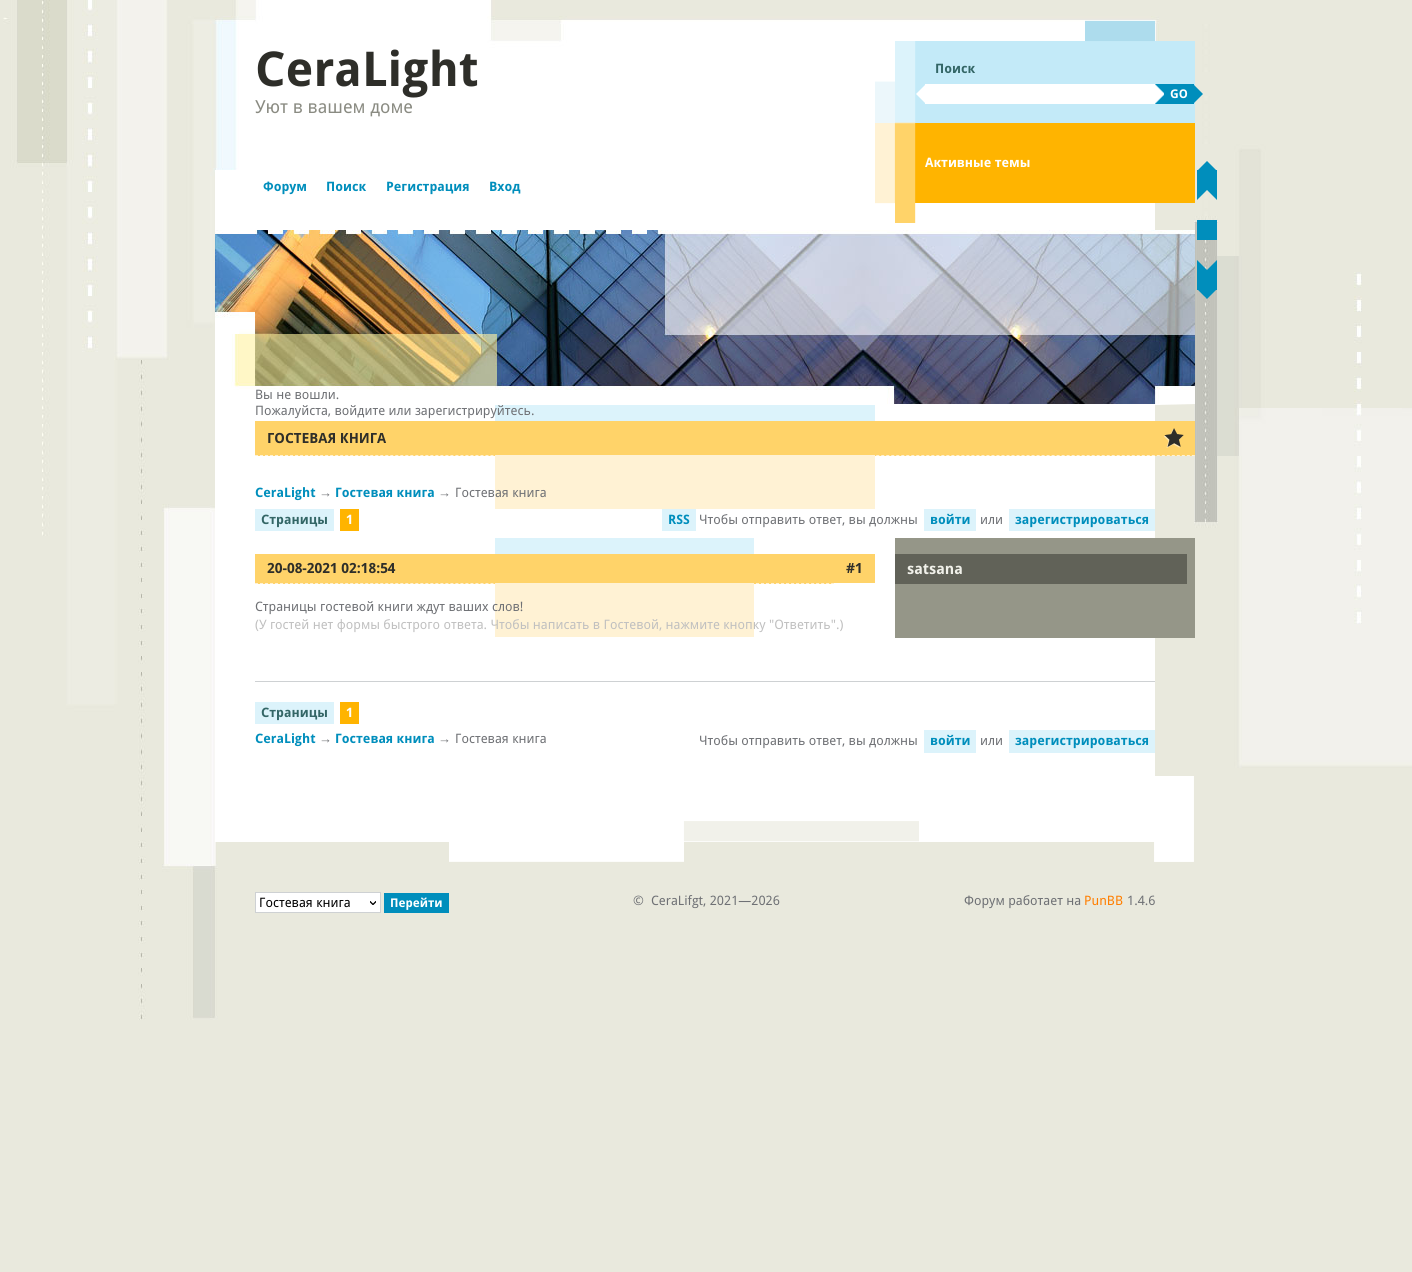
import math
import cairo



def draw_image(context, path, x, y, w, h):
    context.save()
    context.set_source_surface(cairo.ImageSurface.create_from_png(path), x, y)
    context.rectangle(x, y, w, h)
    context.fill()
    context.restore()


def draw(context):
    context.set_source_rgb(233 / 255, 233 / 255, 221 / 255)
    context.paint()
    draw_image(context, "images/1.png", 3, 0, 1409, 1020)
    draw_image(context, "images/2.png", 215, 0, 944, 170)
    draw_image(context, "images/3.png", 875, 20, 320, 103)
    context.set_source_rgb(1, 1, 1)
    context.rectangle(925, 84, 230, 20)
    context.fill()
    context.new_path()
    context.move_to(926, 84)
    context.line_to(926, 104)
    context.line_to(916, 94)
    context.close_path()
    context.fill()
    context.new_path()
    context.move_to(1154, 104)
    context.line_to(1154, 84)
    context.line_to(1164, 94)
    context.close_path()
    context.fill()
    context.set_source_rgb(0, 142 / 255, 188 / 255)
    context.rectangle(1164, 84, 30, 20)
    context.fill()
    context.set_source_rgb(1, 1, 1)
    context.rectangle(215, 170, 940, 60)
    context.fill()
    draw_image(context, "images/4.png", 875, 123, 320, 100)
    draw_image(context, "images/5.png", 215, 230, 980, 174)
    context.set_source_rgb(0, 142 / 255, 188 / 255)
    context.rectangle(1197, 170, 20, 10)
    context.fill()
    context.new_path()
    context.move_to(1217, 170)
    context.line_to(1217, 200)
    context.line_to(1207, 190)
    context.line_to(1207, 180)
    context.close_path()
    context.move_to(1197, 200)
    context.line_to(1197, 170)
    context.line_to(1207, 180)
    context.line_to(1207, 190)
    context.close_path()
    context.fill()
    context.new_path()
    context.move_to(1217, 171)
    context.line_to(1197, 171)
    context.line_to(1207, 161)
    context.close_path()
    context.fill()
    context.rectangle(1197, 220, 20, 20)
    context.fill()
    context.new_path()
    context.move_to(1217, 260)
    context.line_to(1217, 290)
    context.line_to(1207, 280)
    context.line_to(1207, 270)
    context.close_path()
    context.fill()
    context.rectangle(1197, 280, 20, 10)
    context.fill()
    context.new_path()
    context.move_to(1197, 290)
    context.line_to(1197, 260)
    context.line_to(1207, 270)
    context.line_to(1207, 280)
    context.close_path()
    context.fill()
    context.new_path()
    context.move_to(1197, 289)
    context.line_to(1217, 289)
    context.line_to(1207, 299)
    context.close_path()
    context.fill()
    context.set_source_rgb(1, 1, 1)
    context.rectangle(255, 405, 900, 436)
    context.fill()
    context.new_path()
    context.move_to(215, 404)
    context.line_to(1195, 404)
    context.line_to(1155, 405)
    context.line_to(255, 405)
    context.close_path()
    context.fill()
    context.new_path()
    context.move_to(1195, 842)
    context.line_to(215, 842)
    context.line_to(255, 841)
    context.line_to(1155, 841)
    context.close_path()
    context.fill()
    context.rectangle(215, 404, 40, 438)
    context.fill()
    context.set_source_rgb(1, 211 / 255, 105 / 255)
    context.rectangle(255, 421, 940, 35)
    context.fill()
    draw_image(context, "images/6.png", 1164, 428, 20, 20)
    context.new_path()
    context.move_to(255, 455.5)
    context.line_to(1195, 455.5)
    context.set_source_rgb(1, 242 / 255, 212 / 255)
    context.set_line_width(1)
    context.set_dash([3, 2.01])
    context.stroke()
    context.set_source_rgb(220 / 255, 243 / 255, 251 / 255)
    context.rectangle(495, 405, 380, 16)
    context.fill()
    context.set_source_rgb(1, 242 / 255, 212 / 255)
    context.rectangle(495, 455, 380, 54)
    context.fill()
    context.set_source_rgb(220 / 255, 243 / 255, 251 / 255)
    context.rectangle(255, 509, 79, 22)
    context.fill()
    context.set_source_rgb(1, 180 / 255, 0)
    context.rectangle(340, 509, 19, 22)
    context.fill()
    context.set_source_rgb(220 / 255, 243 / 255, 251 / 255)
    context.rectangle(924, 509, 52, 22)
    context.fill()
    context.rectangle(1009, 509, 146, 22)
    context.fill()
    context.rectangle(662, 509, 34, 22)
    context.fill()
    context.set_source_rgb(206 / 255, 209 / 255, 211 / 255)
    context.rectangle(255, 681, 900, 1)
    context.fill()
    context.set_source_rgb(1, 211 / 255, 105 / 255)
    context.rectangle(255, 554, 579, 30)
    context.fill()
    context.new_path()
    context.move_to(255, 583.5)
    context.line_to(834, 583.5)
    context.set_source_rgb(1, 242 / 255, 212 / 255)
    context.stroke()
    context.set_source_rgb(220 / 255, 243 / 255, 251 / 255)
    context.rectangle(495, 538, 259, 16)
    context.fill()
    context.set_source_rgb(1, 242 / 255, 212 / 255)
    context.rectangle(495, 583, 259, 54)
    context.fill()
    context.set_source_rgb(1, 211 / 255, 105 / 255)
    context.rectangle(834, 554, 41, 29)
    context.fill()
    context.set_source_rgb(97 / 255, 98 / 255, 88 / 255)
    context.rectangle(895, 554, 292, 30)
    context.fill()
    context.set_source_rgb(149 / 255, 150 / 255, 136 / 255)
    context.rectangle(895, 538, 292, 16)
    context.fill()
    context.rectangle(1187, 538, 8, 46)
    context.fill()
    context.rectangle(895, 584, 300, 54)
    context.fill()
    context.set_source_rgb(220 / 255, 243 / 255, 251 / 255)
    context.rectangle(255, 702, 79, 22)
    context.fill()
    context.set_source_rgb(1, 180 / 255, 0)
    context.rectangle(340, 702, 19, 22)
    context.fill()
    context.set_source_rgb(220 / 255, 243 / 255, 251 / 255)
    context.rectangle(924, 730, 52, 23)
    context.fill()
    context.rectangle(1009, 730, 146, 23)
    context.fill()
    draw_image(context, "images/7.png", 449, 776, 745, 86)
    context.set_source_rgb(1, 1, 1)
    context.rectangle(256, 893, 124, 19)
    context.fill()
    draw_image(context, "images/8.png", 370, 901, 6, 4)
    context.rectangle(255.5, 892.5, 125, 20)
    context.set_source_rgb(206 / 255, 209 / 255, 211 / 255)
    context.set_dash([])
    context.stroke()
    context.set_source_rgb(0, 142 / 255, 188 / 255)
    context.rectangle(384, 893, 65, 20)
    context.fill()
    context.select_font_face("Droid Sans", cairo.FontSlant.NORMAL, cairo.FontWeight.BOLD)
    context.set_font_size(48)
    context.set_source_rgb(46 / 255, 46 / 255, 41 / 255)
    context.move_to(255, 86)
    context.show_text("CeraLight")
    context.set_font_size(13)
    context.set_source_rgb(51 / 255, 102 / 255, 102 / 255)
    context.move_to(935, 73)
    context.show_text("Поиск")
    context.set_font_size(12)
    context.set_source_rgb(1, 1, 1)
    context.move_to(1170, 98)
    context.show_text("GO")
    context.set_source_rgb(0, 142 / 255, 188 / 255)
    context.new_path()
    context.move_to(1155, 84)
    context.line_to(1165, 84)
    context.line_to(1165, 94)
    context.close_path()
    context.move_to(1165, 104)
    context.line_to(1155, 104)
    context.line_to(1165, 94)
    context.close_path()
    context.move_to(1193, 104)
    context.line_to(1193, 84)
    context.line_to(1203, 94)
    context.close_path()
    context.fill()
    context.select_font_face("Droid Sans")
    context.set_font_size(18)
    context.set_source_rgb(138 / 255, 139 / 255, 130 / 255)
    context.move_to(255, 113)
    context.show_text("Уют в вашем доме")
    context.select_font_face("Droid Sans", cairo.FontSlant.NORMAL, cairo.FontWeight.BOLD)
    context.set_font_size(13)
    context.set_source_rgb(1, 1, 1)
    context.move_to(925, 167)
    context.show_text("Активные темы")
    context.select_font_face("Droid Sans")
    context.set_source_rgb(111 / 255, 113 / 255, 117 / 255)
    context.move_to(255, 399)
    context.show_text("Вы не вошли.")
    context.move_to(255, 415)
    context.show_text("Пожалуйста, войдите или зарегистрируйтесь.")
    context.select_font_face("Droid Sans", cairo.FontSlant.NORMAL, cairo.FontWeight.BOLD)
    context.set_source_rgb(0, 142 / 255, 188 / 255)
    context.move_to(263, 191)
    context.show_text("Форум")
    context.move_to(326, 191)
    context.show_text("Поиск")
    context.move_to(386, 191)
    context.show_text("Регистрация")
    context.move_to(489, 191)
    context.show_text("Вход")
    context.set_font_size(14)
    context.set_source_rgb(46 / 255, 46 / 255, 41 / 255)
    context.move_to(267, 443)
    context.show_text("ГОСТЕВАЯ КНИГА")
    context.set_font_size(13)
    context.set_source_rgb(0, 142 / 255, 188 / 255)
    context.move_to(255, 497)
    context.show_text("CeraLight")
    context.select_font_face("Liberation Sans")
    context.set_source_rgb(111 / 255, 113 / 255, 117 / 255)
    context.move_to(319, 497)
    context.show_text("→")
    context.select_font_face("Droid Sans", cairo.FontSlant.NORMAL, cairo.FontWeight.BOLD)
    context.set_source_rgb(0, 142 / 255, 188 / 255)
    context.move_to(335, 497)
    context.show_text("Гостевая книга")
    context.select_font_face("Liberation Sans")
    context.set_source_rgb(111 / 255, 113 / 255, 117 / 255)
    context.move_to(438, 497)
    context.show_text("→")
    context.select_font_face("Droid Sans")
    context.move_to(455, 497)
    context.show_text("Гостевая книга")
    context.select_font_face("Droid Sans", cairo.FontSlant.NORMAL, cairo.FontWeight.BOLD)
    context.set_source_rgb(51 / 255, 102 / 255, 102 / 255)
    context.move_to(261, 524)
    context.show_text("Страницы")
    context.set_source_rgb(1, 1, 1)
    context.move_to(346, 524)
    context.show_text("1")
    context.select_font_face("Droid Sans")
    context.set_source_rgb(111 / 255, 113 / 255, 117 / 255)
    context.move_to(699, 524)
    context.show_text("Чтобы отправить ответ, вы должны")
    context.select_font_face("Droid Sans", cairo.FontSlant.NORMAL, cairo.FontWeight.BOLD)
    context.set_source_rgb(0, 142 / 255, 188 / 255)
    context.move_to(930, 524)
    context.show_text("войти")
    context.select_font_face("Droid Sans")
    context.set_source_rgb(111 / 255, 113 / 255, 117 / 255)
    context.move_to(980, 524)
    context.show_text("или")
    context.select_font_face("Droid Sans", cairo.FontSlant.NORMAL, cairo.FontWeight.BOLD)
    context.set_source_rgb(0, 142 / 255, 188 / 255)
    context.move_to(1015, 524)
    context.show_text("зарегистрироваться")
    context.move_to(668, 524)
    context.show_text("RSS")
    context.set_font_size(14)
    context.set_source_rgb(46 / 255, 46 / 255, 41 / 255)
    context.move_to(267, 573)
    context.show_text("20-08-2021 02:18:54")
    context.move_to(846, 573)
    context.show_text("#1")
    context.set_font_size(15)
    context.set_source_rgb(241 / 255, 241 / 255, 234 / 255)
    context.move_to(907, 574)
    context.show_text("satsana")
    context.select_font_face("Droid Sans")
    context.set_font_size(13)
    context.set_source_rgb(111 / 255, 113 / 255, 117 / 255)
    context.move_to(255, 611)
    context.show_text("Страницы гостевой книги ждут ваших слов!")
    context.set_source_rgb(192 / 255, 192 / 255, 192 / 255)
    context.move_to(255, 629)
    context.show_text("(У гостей нет формы быстрого ответа. Чтобы написать в Гостевой, нажмите кнопку \"Ответить\".)")
    context.select_font_face("Droid Sans", cairo.FontSlant.NORMAL, cairo.FontWeight.BOLD)
    context.set_source_rgb(51 / 255, 102 / 255, 102 / 255)
    context.move_to(261, 717)
    context.show_text("Страницы")
    context.set_source_rgb(1, 1, 1)
    context.move_to(346, 717)
    context.show_text("1")
    context.select_font_face("Droid Sans")
    context.set_source_rgb(111 / 255, 113 / 255, 117 / 255)
    context.move_to(699, 745)
    context.show_text("Чтобы отправить ответ, вы должны")
    context.select_font_face("Droid Sans", cairo.FontSlant.NORMAL, cairo.FontWeight.BOLD)
    context.set_source_rgb(0, 142 / 255, 188 / 255)
    context.move_to(930, 745)
    context.show_text("войти")
    context.select_font_face("Droid Sans")
    context.set_source_rgb(111 / 255, 113 / 255, 117 / 255)
    context.move_to(980, 745)
    context.show_text("или")
    context.select_font_face("Droid Sans", cairo.FontSlant.NORMAL, cairo.FontWeight.BOLD)
    context.set_source_rgb(0, 142 / 255, 188 / 255)
    context.move_to(1015, 745)
    context.show_text("зарегистрироваться")
    context.move_to(255, 743)
    context.show_text("CeraLight")
    context.select_font_face("Liberation Sans")
    context.set_source_rgb(111 / 255, 113 / 255, 117 / 255)
    context.move_to(319, 743)
    context.show_text("→")
    context.select_font_face("Droid Sans", cairo.FontSlant.NORMAL, cairo.FontWeight.BOLD)
    context.set_source_rgb(0, 142 / 255, 188 / 255)
    context.move_to(335, 743)
    context.show_text("Гостевая книга")
    context.select_font_face("Liberation Sans")
    context.set_source_rgb(111 / 255, 113 / 255, 117 / 255)
    context.move_to(438, 743)
    context.show_text("→")
    context.select_font_face("Droid Sans")
    context.move_to(455, 743)
    context.show_text("Гостевая книга")
    context.set_source_rgb(0, 0, 0)
    context.move_to(259, 907)
    context.show_text("Гостевая книга")
    context.select_font_face("Droid Sans", cairo.FontSlant.NORMAL, cairo.FontWeight.BOLD)
    context.set_font_size(12)
    context.set_source_rgb(1, 1, 1)
    context.move_to(390, 907)
    context.show_text("Перейти")
    context.select_font_face("Droid Sans")
    context.set_font_size(13)
    context.set_source_rgb(111 / 255, 113 / 255, 117 / 255)
    context.move_to(633, 905)
    context.show_text("© CeraLifgt, 2021—2026")
    context.move_to(964, 905)
    context.show_text("Форум работает на")
    context.set_source_rgb(1, 126 / 255, 0)
    context.move_to(1084, 905)
    context.show_text("PunBB")
    context.set_source_rgb(111 / 255, 113 / 255, 117 / 255)
    context.move_to(1127, 905)
    context.show_text("1.4.6")


surface = cairo.ImageSurface(cairo.Format.RGB24, 1412, 1272)
context = cairo.Context(surface)
options = cairo.FontOptions()
options.set_hint_metrics(cairo.HintMetrics.OFF)
options.set_hint_style(cairo.HintStyle.NONE)
context.set_font_options(options)
context.set_miter_limit(4)
draw(context)
surface.write_to_png("out.png")
